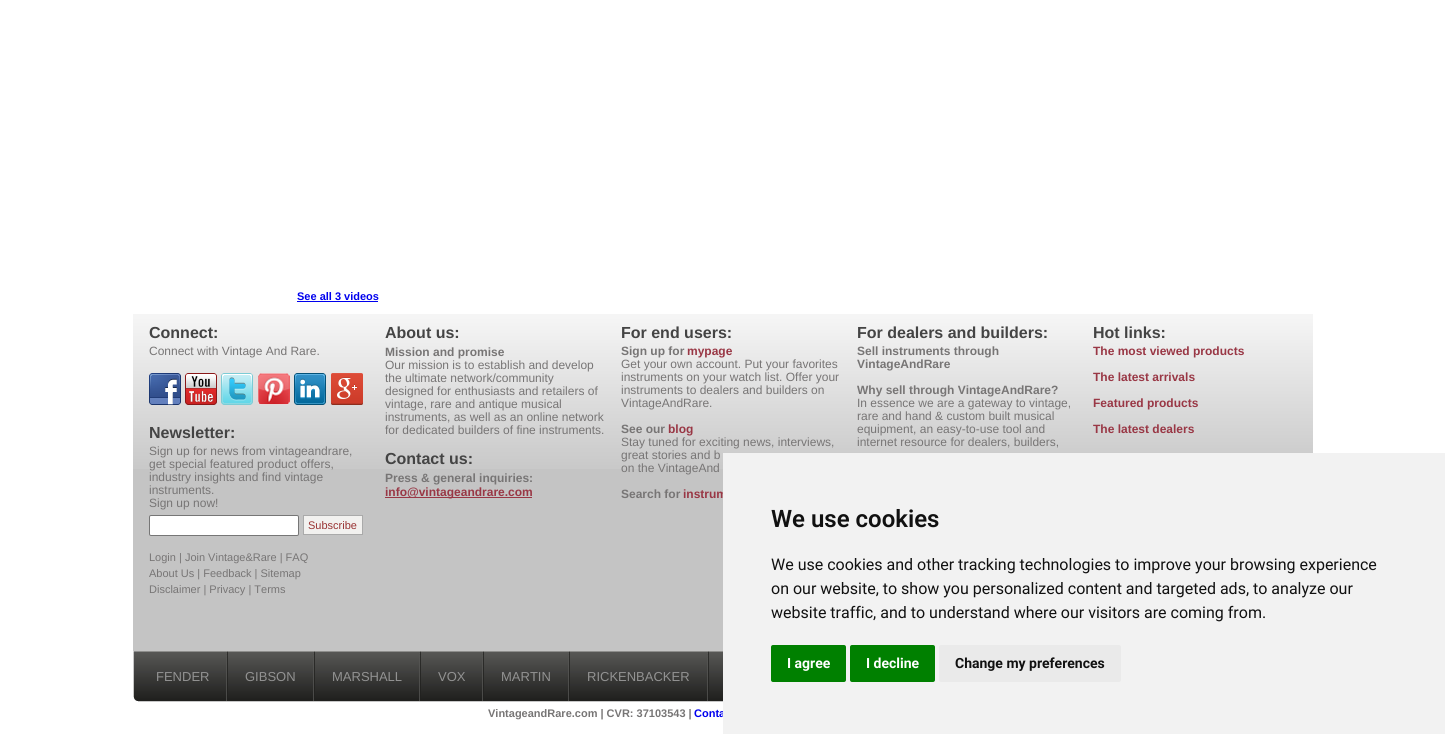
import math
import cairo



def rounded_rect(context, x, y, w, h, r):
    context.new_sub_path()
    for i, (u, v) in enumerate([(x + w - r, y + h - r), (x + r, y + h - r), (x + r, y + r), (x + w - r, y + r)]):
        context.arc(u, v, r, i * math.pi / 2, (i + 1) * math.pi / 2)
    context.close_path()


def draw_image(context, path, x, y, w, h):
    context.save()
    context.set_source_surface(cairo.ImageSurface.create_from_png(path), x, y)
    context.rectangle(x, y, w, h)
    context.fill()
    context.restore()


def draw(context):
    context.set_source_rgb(1, 1, 1)
    context.paint()
    context.set_source_rgb(0, 0, 238 / 255)
    context.rectangle(297, 301, 81, 1)
    context.fill()
    context.set_source_rgb(196 / 255, 196 / 255, 196 / 255)
    context.rectangle(133, 469, 590, 182)
    context.fill()
    draw_image(context, "images/1.png", 133, 314, 1180, 155)
    draw_image(context, "images/2.png", 149, 373, 32, 32)
    draw_image(context, "images/3.png", 185, 373, 32, 32)
    draw_image(context, "images/4.png", 221, 373, 32, 32)
    draw_image(context, "images/5.png", 258, 373, 32, 32)
    draw_image(context, "images/6.png", 294, 373, 32, 32)
    draw_image(context, "images/7.png", 331, 373, 32, 32)
    context.set_source_rgb(1, 1, 1)
    rounded_rect(context, 149.5, 515.5, 149, 20, 1.5)
    context.fill_preserve()
    context.set_source_rgb(118 / 255, 118 / 255, 118 / 255)
    context.set_line_width(1)
    context.stroke()
    context.set_source_rgb(242 / 255, 241 / 255, 239 / 255)
    context.rectangle(303.5, 515.5, 59, 19)
    context.fill_preserve()
    context.set_source_rgb(170 / 255, 170 / 255, 170 / 255)
    context.stroke()
    context.set_source_rgb(153 / 255, 55 / 255, 69 / 255)
    context.rectangle(385, 497, 147, 1)
    context.fill()
    draw_image(context, "images/8.png", 133, 651, 6, 51)
    draw_image(context, "images/9.png", 139, 651, 584, 51)
    draw_image(context, "images/10.png", 226, 651, 2, 50)
    draw_image(context, "images/10.png", 313, 651, 2, 50)
    draw_image(context, "images/10.png", 419, 651, 2, 50)
    draw_image(context, "images/10.png", 482, 651, 2, 50)
    draw_image(context, "images/10.png", 568, 651, 2, 50)
    draw_image(context, "images/10.png", 707, 651, 2, 50)
    context.select_font_face("Liberation Sans", cairo.FontSlant.NORMAL, cairo.FontWeight.BOLD)
    context.set_font_size(11)
    context.set_source_rgb(0, 0, 238 / 255)
    context.move_to(297, 300)
    context.show_text("See all 3 videos")
    context.set_font_size(16)
    context.set_source_rgb(68 / 255, 68 / 255, 68 / 255)
    context.move_to(149, 338)
    context.show_text("Connect:")
    context.select_font_face("Liberation Sans")
    context.set_font_size(12)
    context.set_source_rgb(119 / 255, 117 / 255, 117 / 255)
    context.move_to(149, 355)
    context.show_text("Connect with Vintage And Rare.")
    context.select_font_face("Liberation Sans", cairo.FontSlant.NORMAL, cairo.FontWeight.BOLD)
    context.set_font_size(16)
    context.set_source_rgb(68 / 255, 68 / 255, 68 / 255)
    context.move_to(149, 438)
    context.show_text("Newsletter:")
    context.select_font_face("Liberation Sans")
    context.set_font_size(12)
    context.set_source_rgb(119 / 255, 117 / 255, 117 / 255)
    context.move_to(149, 455)
    context.show_text("Sign up for news from vintageandrare,")
    context.move_to(149, 468)
    context.show_text("get special featured product offers,")
    context.move_to(149, 481)
    context.show_text("industry insights and find vintage")
    context.move_to(149, 494)
    context.show_text("instruments.")
    context.move_to(149, 507)
    context.show_text("Sign up now!")
    context.set_font_size(11)
    context.set_source_rgb(153 / 255, 51 / 255, 51 / 255)
    context.move_to(308, 529)
    context.show_text("Subscribe")
    context.set_source_rgb(119 / 255, 117 / 255, 117 / 255)
    context.move_to(149, 561)
    context.show_text("Login | Join Vintage&Rare | FAQ")
    context.move_to(149, 577)
    context.show_text("About Us | Feedback | Sitemap")
    context.move_to(149, 593)
    context.show_text("Disclaimer | Privacy | Terms")
    context.select_font_face("Liberation Sans", cairo.FontSlant.NORMAL, cairo.FontWeight.BOLD)
    context.set_font_size(16)
    context.set_source_rgb(68 / 255, 68 / 255, 68 / 255)
    context.move_to(385, 338)
    context.show_text("About us:")
    context.set_font_size(12)
    context.set_source_rgb(119 / 255, 117 / 255, 117 / 255)
    context.move_to(385, 356)
    context.show_text("Mission and promise")
    context.select_font_face("Liberation Sans")
    context.move_to(385, 369)
    context.show_text("Our mission is to establish and develop")
    context.move_to(385, 382)
    context.show_text("the ultimate network/community")
    context.move_to(385, 395)
    context.show_text("designed for enthusiasts and retailers of")
    context.move_to(385, 408)
    context.show_text("vintage, rare and antique musical")
    context.move_to(385, 421)
    context.show_text("instruments, as well as an online network")
    context.move_to(385, 434)
    context.show_text("for dedicated builders of fine instruments.")
    context.select_font_face("Liberation Sans", cairo.FontSlant.NORMAL, cairo.FontWeight.BOLD)
    context.set_font_size(16)
    context.set_source_rgb(68 / 255, 68 / 255, 68 / 255)
    context.move_to(385, 464)
    context.show_text("Contact us:")
    context.set_font_size(12)
    context.set_source_rgb(119 / 255, 117 / 255, 117 / 255)
    context.move_to(385, 482)
    context.show_text("Press & general inquiries:")
    context.set_source_rgb(153 / 255, 55 / 255, 69 / 255)
    context.move_to(385, 496)
    context.show_text("info@vintageandrare.com")
    context.set_font_size(16)
    context.set_source_rgb(68 / 255, 68 / 255, 68 / 255)
    context.move_to(621, 338)
    context.show_text("For end users:")
    context.set_font_size(12)
    context.set_source_rgb(119 / 255, 117 / 255, 117 / 255)
    context.move_to(621, 355)
    context.show_text("Sign up for")
    context.set_source_rgb(153 / 255, 55 / 255, 69 / 255)
    context.move_to(687, 355)
    context.show_text("mypage")
    context.select_font_face("Liberation Sans")
    context.set_source_rgb(119 / 255, 117 / 255, 117 / 255)
    context.move_to(621, 368)
    context.show_text("Get your own account. Put your favorites")
    context.move_to(621, 381)
    context.show_text("instruments on your watch list. Offer your")
    context.move_to(621, 394)
    context.show_text("instruments to dealers and builders on")
    context.move_to(621, 407)
    context.show_text("VintageAndRare.")
    context.select_font_face("Liberation Sans", cairo.FontSlant.NORMAL, cairo.FontWeight.BOLD)
    context.move_to(621, 433)
    context.show_text("See our")
    context.set_source_rgb(153 / 255, 55 / 255, 69 / 255)
    context.move_to(668, 433)
    context.show_text("blog")
    context.select_font_face("Liberation Sans")
    context.set_source_rgb(119 / 255, 117 / 255, 117 / 255)
    context.move_to(621, 446)
    context.show_text("Stay tuned for exciting news, interviews,")
    context.move_to(621, 459)
    context.show_text("great stories and b")
    context.move_to(621, 472)
    context.show_text("on the VintageAnd")
    context.select_font_face("Liberation Sans", cairo.FontSlant.NORMAL, cairo.FontWeight.BOLD)
    context.move_to(621, 498)
    context.show_text("Search for")
    context.set_source_rgb(153 / 255, 55 / 255, 69 / 255)
    context.move_to(683, 498)
    context.show_text("instrum")
    context.set_font_size(16)
    context.set_source_rgb(68 / 255, 68 / 255, 68 / 255)
    context.move_to(857, 338)
    context.show_text("For dealers and builders:")
    context.set_font_size(12)
    context.set_source_rgb(119 / 255, 117 / 255, 117 / 255)
    context.move_to(857, 355)
    context.show_text("Sell instruments through")
    context.move_to(857, 368)
    context.show_text("VintageAndRare")
    context.move_to(857, 394)
    context.show_text("Why sell through VintageAndRare?")
    context.select_font_face("Liberation Sans")
    context.move_to(857, 407)
    context.show_text("In essence we are a gateway to vintage,")
    context.move_to(857, 420)
    context.show_text("rare and hand & custom built musical")
    context.move_to(857, 433)
    context.show_text("equipment, an easy-to-use tool and")
    context.move_to(857, 446)
    context.show_text("internet resource for dealers, builders,")
    context.select_font_face("Liberation Sans", cairo.FontSlant.NORMAL, cairo.FontWeight.BOLD)
    context.set_font_size(16)
    context.set_source_rgb(68 / 255, 68 / 255, 68 / 255)
    context.move_to(1093, 338)
    context.show_text("Hot links:")
    context.set_font_size(12)
    context.set_source_rgb(153 / 255, 55 / 255, 69 / 255)
    context.move_to(1093, 355)
    context.show_text("The most viewed products")
    context.move_to(1093, 381)
    context.show_text("The latest arrivals")
    context.move_to(1093, 407)
    context.show_text("Featured products")
    context.move_to(1093, 433)
    context.show_text("The latest dealers")
    context.select_font_face("Liberation Sans")
    context.set_font_size(13)
    context.set_source_rgb(146 / 255, 146 / 255, 146 / 255)
    context.move_to(156, 681)
    context.show_text("FENDER")
    context.move_to(245, 681)
    context.show_text("GIBSON")
    context.move_to(332, 681)
    context.show_text("MARSHALL")
    context.move_to(438, 681)
    context.show_text("VOX")
    context.move_to(501, 681)
    context.show_text("MARTIN")
    context.move_to(587, 681)
    context.show_text("RICKENBACKER")
    context.select_font_face("Liberation Sans", cairo.FontSlant.NORMAL, cairo.FontWeight.BOLD)
    context.set_font_size(11)
    context.set_source_rgb(119 / 255, 117 / 255, 117 / 255)
    context.move_to(488, 717)
    context.show_text("VintageandRare.com | CVR: 37103543 |")
    context.set_source_rgb(0, 0, 238 / 255)
    context.move_to(694, 717)
    context.show_text("Conta")
    context.set_source_rgb(242 / 255, 242 / 255, 242 / 255)
    context.rectangle(723, 453, 722, 281)
    context.fill()
    context.select_font_face("Roboto SemiBold")
    context.set_font_size(24)
    context.set_source_rgb(17 / 255, 17 / 255, 17 / 255)
    context.move_to(771, 527)
    context.show_text("We use cookies")
    context.select_font_face("Roboto")
    context.set_font_size(16)
    context.move_to(771, 570)
    context.show_text("We use cookies and other tracking technologies to improve your browsing experience")
    context.move_to(771, 594)
    context.show_text("on our website, to show you personalized content and targeted ads, to analyze our")
    context.move_to(771, 618)
    context.show_text("website traffic, and to understand where our visitors are coming from.")
    context.set_source_rgb(0, 128 / 255, 0)
    rounded_rect(context, 771, 645, 75, 37, 2)
    context.fill()
    context.select_font_face("Roboto", cairo.FontSlant.NORMAL, cairo.FontWeight.BOLD)
    context.set_font_size(14)
    context.set_source_rgb(1, 1, 1)
    context.move_to(787, 668)
    context.show_text("I agree")
    context.set_source_rgb(0, 128 / 255, 0)
    rounded_rect(context, 850, 645, 85, 37, 2)
    context.fill()
    context.set_source_rgb(1, 1, 1)
    context.move_to(866, 668)
    context.show_text("I decline")
    context.set_source_rgb(234 / 255, 234 / 255, 234 / 255)
    rounded_rect(context, 939, 645, 182, 37, 2)
    context.fill()
    context.set_source_rgb(17 / 255, 17 / 255, 17 / 255)
    context.move_to(955, 668)
    context.show_text("Change my preferences")


surface = cairo.ImageSurface(cairo.Format.RGB24, 1445, 734)
context = cairo.Context(surface)
options = cairo.FontOptions()
options.set_hint_metrics(cairo.HintMetrics.OFF)
options.set_hint_style(cairo.HintStyle.NONE)
context.set_font_options(options)
context.set_miter_limit(4)
draw(context)
surface.write_to_png("out.png")
